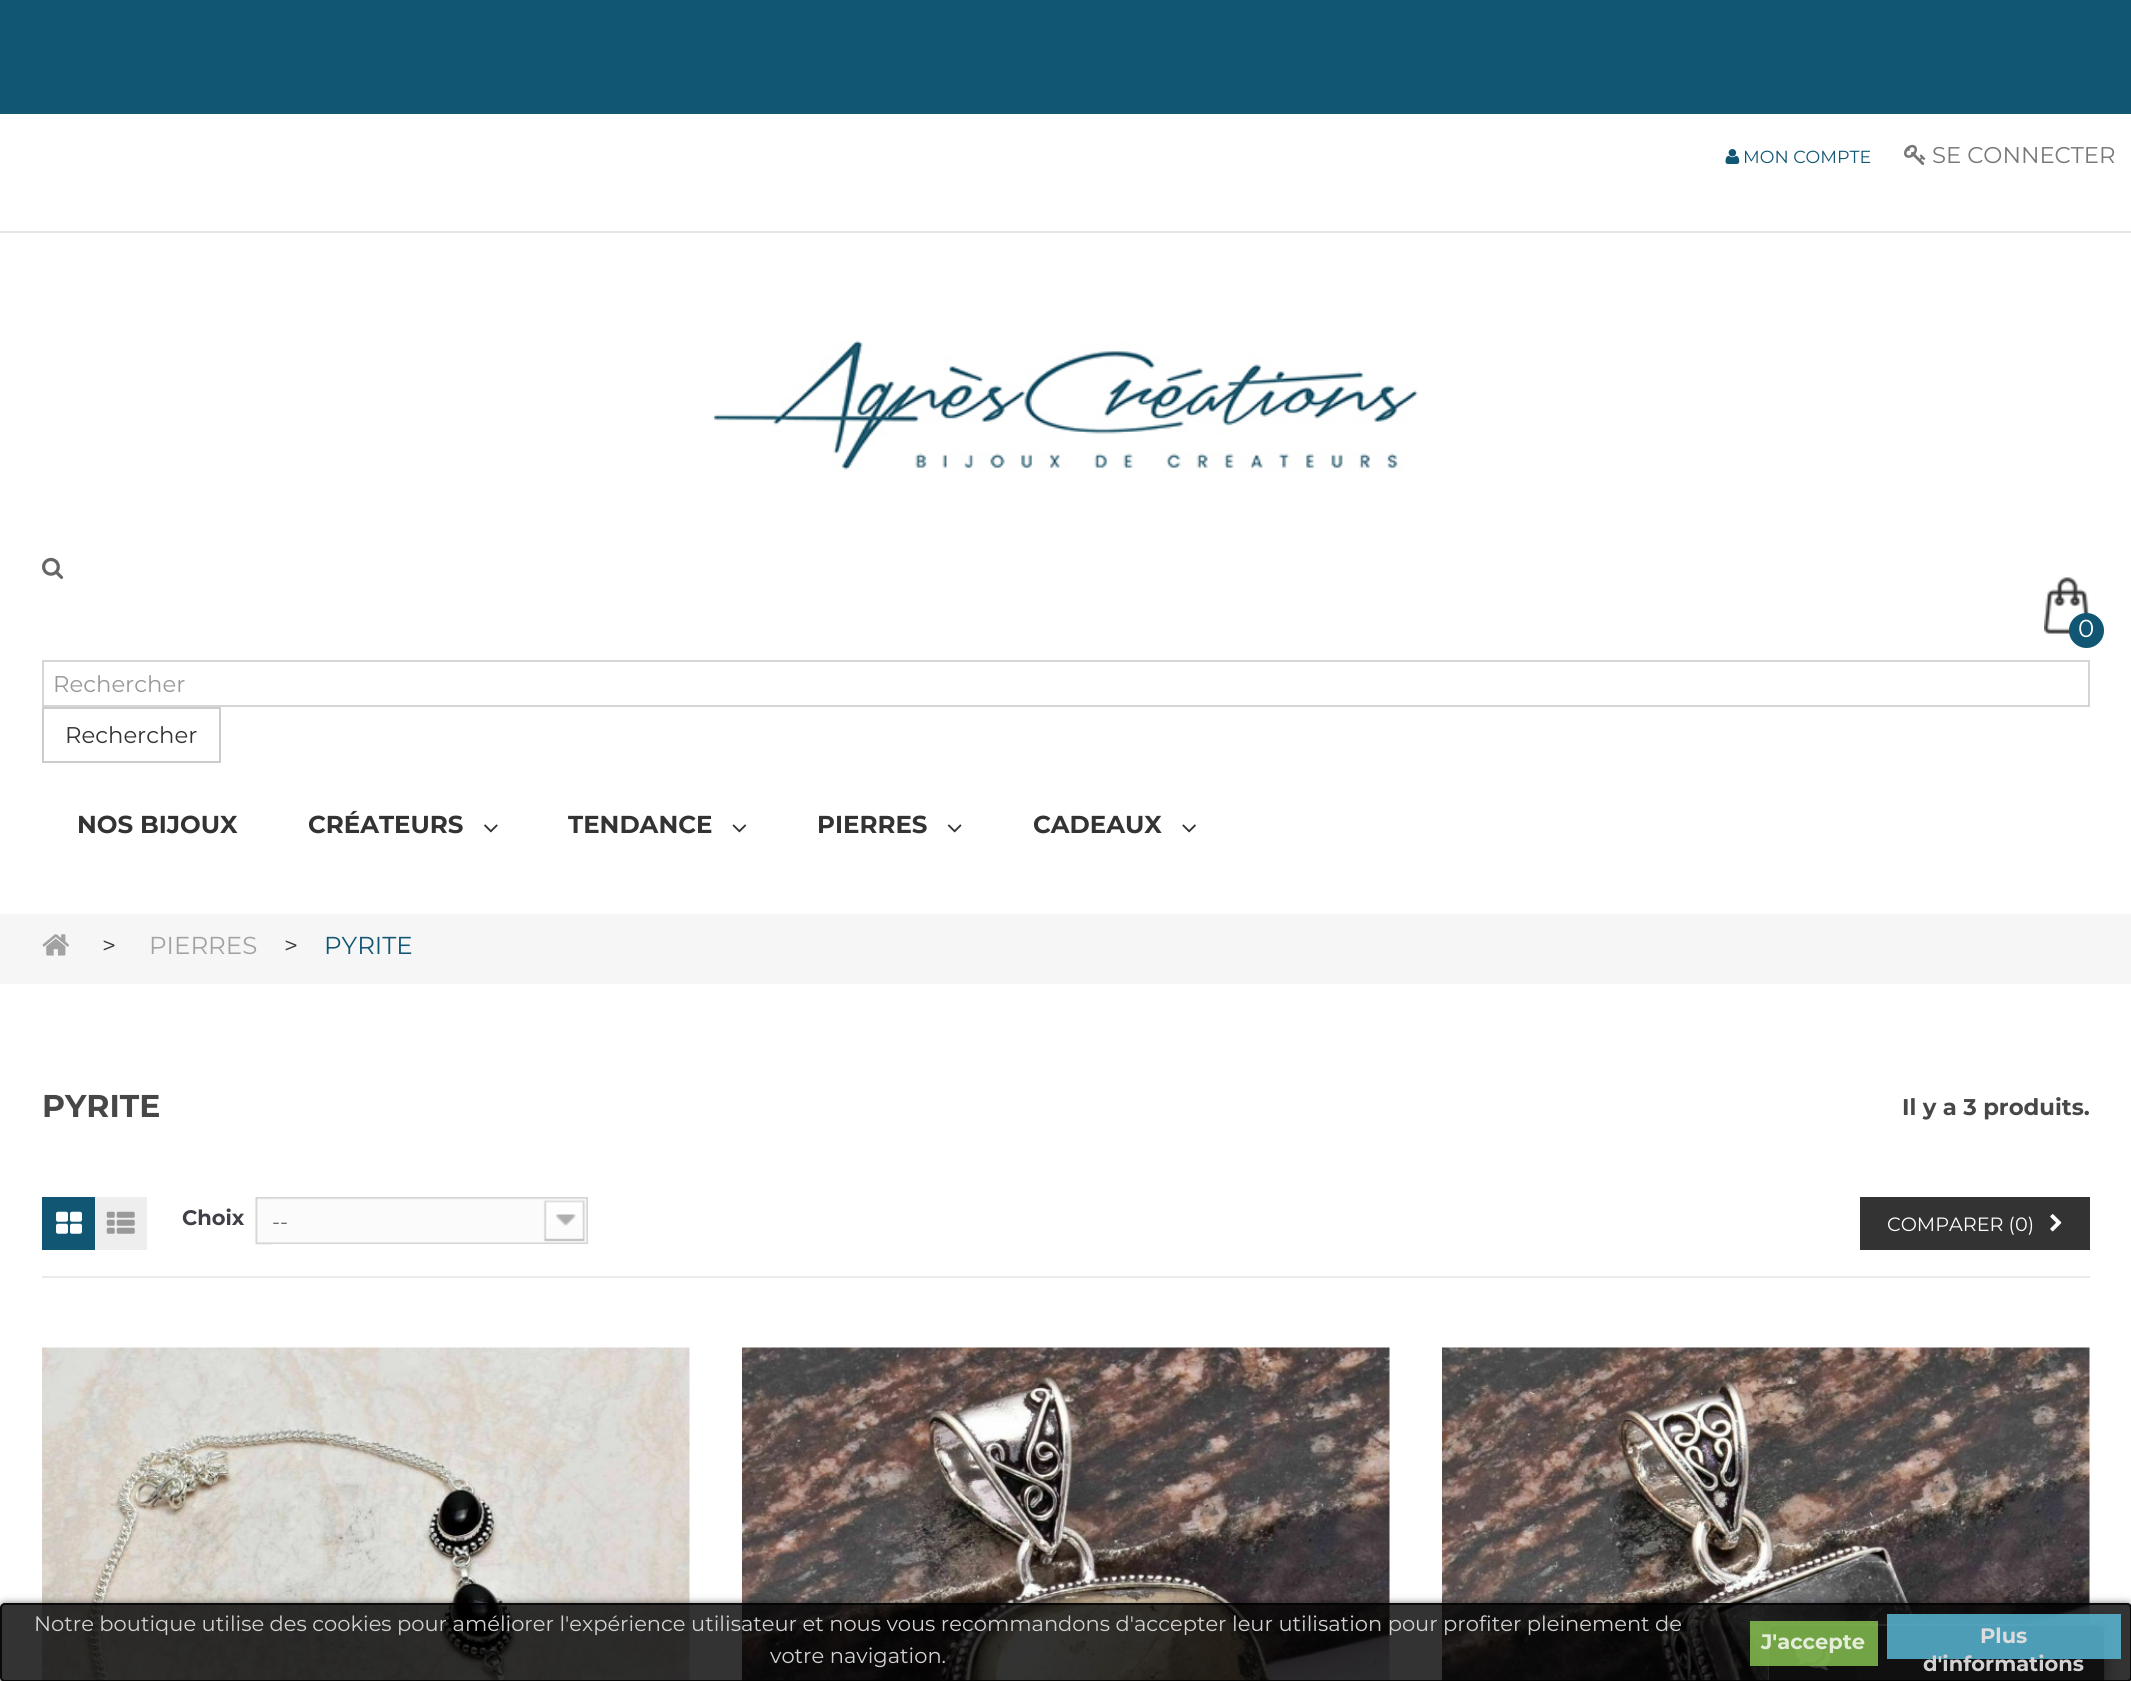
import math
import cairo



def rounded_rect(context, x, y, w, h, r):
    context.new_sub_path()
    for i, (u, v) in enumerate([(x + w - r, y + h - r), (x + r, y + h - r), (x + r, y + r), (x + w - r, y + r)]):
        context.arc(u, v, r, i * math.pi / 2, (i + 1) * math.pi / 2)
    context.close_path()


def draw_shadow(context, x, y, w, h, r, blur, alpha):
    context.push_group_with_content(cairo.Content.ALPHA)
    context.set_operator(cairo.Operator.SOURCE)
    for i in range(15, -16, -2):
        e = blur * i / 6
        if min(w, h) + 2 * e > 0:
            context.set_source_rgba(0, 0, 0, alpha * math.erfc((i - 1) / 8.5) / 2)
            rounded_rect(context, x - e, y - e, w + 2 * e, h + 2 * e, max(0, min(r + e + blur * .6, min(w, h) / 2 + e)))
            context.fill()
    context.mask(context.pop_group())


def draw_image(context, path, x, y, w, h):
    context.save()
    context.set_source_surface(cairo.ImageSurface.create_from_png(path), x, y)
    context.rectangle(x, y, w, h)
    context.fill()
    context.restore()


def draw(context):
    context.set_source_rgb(1, 1, 1)
    context.paint()
    context.set_source_rgb(17 / 255, 86 / 255, 115 / 255)
    context.rectangle(0, 0, 2131, 114)
    context.fill()
    context.set_source_rgb(229 / 255, 229 / 255, 229 / 255)
    context.rectangle(0, 231, 2131, 2)
    context.fill()
    draw_image(context, "images/1.png", 1725, 149, 15, 15)
    draw_image(context, "images/2.png", 1904, 144, 22, 22)
    draw_image(context, "images/3.png", 712, 340, 706, 134)
    draw_image(context, "images/4.png", 2044, 577, 46, 57)
    context.set_source_rgb(17 / 255, 86 / 255, 115 / 255)
    context.arc(2086.5, 630.5, 17.5, 0, 2 * math.pi)
    context.fill()
    draw_image(context, "images/5.png", 42, 557, 22, 22)
    context.rectangle(43, 661, 2046, 45)
    context.set_source_rgb(214 / 255, 212 / 255, 212 / 255)
    context.stroke()
    context.rectangle(43, 708, 177, 54)
    context.set_source_rgb(204 / 255, 204 / 255, 204 / 255)
    context.stroke()
    draw_image(context, "images/16.png", 42, 1347, 648, 334)
    draw_image(context, "images/17.png", 742, 1347, 648, 334)
    draw_image(context, "images/18.png", 1442, 1347, 648, 334)
    context.set_source_rgb(153 / 255, 153 / 255, 153 / 255)
    draw_shadow(context, 1768, 1624, 337, 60, 5, 8, 1)
    context.set_source_rgb(1, 1, 1)
    context.new_path()
    context.move_to(1773, 1625)
    context.line_to(2100, 1625)
    context.curve_to(2102, 1625, 2104, 1627, 2104, 1629)
    context.line_to(2104, 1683)
    context.line_to(1769, 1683)
    context.line_to(1769, 1629)
    context.curve_to(1769, 1627, 1771, 1625, 1773, 1625)
    context.close_path()
    context.fill_preserve()
    context.set_source_rgb(190 / 255, 190 / 255, 190 / 255)
    context.stroke()
    context.set_source_rgb(80 / 255, 80 / 255, 80 / 255)
    context.new_path()
    context.move_to(1774, 1626)
    context.line_to(2099, 1626)
    context.curve_to(2102, 1626, 2104, 1628, 2104, 1631)
    context.line_to(2104, 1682)
    context.line_to(1769, 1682)
    context.line_to(1769, 1631)
    context.curve_to(1769, 1628, 1771, 1626, 1774, 1626)
    context.close_path()
    context.fill()
    context.set_source_rgba(0, 0, 0, 0.1)
    context.rectangle(1769, 1626, 88, 55)
    context.fill()
    draw_image(context, "images/19.png", 1795, 1642, 36, 29)
    context.save()
    context.set_fill_rule(cairo.FillRule.EVEN_ODD)
    context.new_path()
    context.move_to(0, 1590)
    context.line_to(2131, 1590)
    context.line_to(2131, 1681)
    context.line_to(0, 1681)
    context.close_path()
    context.move_to(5, 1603)
    context.line_to(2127, 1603)
    context.curve_to(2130, 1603, 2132, 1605, 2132, 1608)
    context.line_to(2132, 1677)
    context.curve_to(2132, 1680, 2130, 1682, 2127, 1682)
    context.line_to(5, 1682)
    context.curve_to(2, 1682, 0, 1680, 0, 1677)
    context.line_to(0, 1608)
    context.curve_to(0, 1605, 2, 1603, 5, 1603)
    context.close_path()
    context.clip()
    context.set_source_rgb(0, 0, 0)
    draw_shadow(context, 0, 1605, 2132, 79, 5, 4.5, 0.8)
    context.restore()
    context.set_source_rgba(0, 0, 0, 0.8)
    rounded_rect(context, 0, 1603, 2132, 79, 5)
    context.fill()
    rounded_rect(context, 1, 1604, 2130, 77, 4)
    context.stroke()
    context.set_source_rgba(139 / 255, 201 / 255, 84 / 255, 0.8)
    context.rectangle(1750, 1621, 128, 45)
    context.fill()
    context.set_source_rgba(91 / 255, 192 / 255, 222 / 255, 0.8)
    context.rectangle(1887, 1614, 234, 45)
    context.fill()
    draw_image(context, "images/6.png", 484, 824, 14, 9)
    draw_image(context, "images/7.png", 732, 824, 15, 9)
    draw_image(context, "images/8.png", 947, 824, 15, 9)
    draw_image(context, "images/9.png", 1182, 824, 14, 9)
    context.set_source_rgb(246 / 255, 246 / 255, 246 / 255)
    context.rectangle(0, 914, 2131, 70)
    context.fill()
    draw_image(context, "images/10.png", 42, 934, 27, 22)
    context.set_source_rgb(235 / 255, 235 / 255, 235 / 255)
    context.rectangle(42, 1276, 2048, 2)
    context.fill()
    context.set_source_rgb(17 / 255, 86 / 255, 115 / 255)
    context.rectangle(42, 1197, 53, 53)
    context.fill()
    draw_image(context, "images/11.png", 56, 1211, 26, 23)
    context.set_source_rgb(238 / 255, 238 / 255, 238 / 255)
    context.rectangle(95, 1197, 52, 53)
    context.fill()
    draw_image(context, "images/12.png", 106, 1211, 29, 23)
    draw_image(context, "images/13.png", 255, 1197, 19, 48)
    draw_image(context, "images/14.png", 273, 1197, 315, 47)
    context.set_source_rgb(51 / 255, 51 / 255, 51 / 255)
    context.rectangle(1860, 1197, 230, 53)
    context.fill()
    draw_image(context, "images/15.png", 2050, 1214, 12, 18)
    context.select_font_face("Montserrat")
    context.set_font_size(17.5)
    context.set_source_rgb(17 / 255, 86 / 255, 115 / 255)
    context.move_to(1743, 163)
    context.show_text("MON COMPTE")
    context.set_font_size(22.75)
    context.set_source_rgb(119 / 255, 119 / 255, 119 / 255)
    context.move_to(1932, 163)
    context.show_text("SE CONNECTER")
    context.set_font_size(24.5)
    context.set_source_rgb(1, 1, 1)
    context.move_to(2078, 637)
    context.show_text("0")
    context.set_font_size(22.75)
    context.set_source_rgb(153 / 255, 153 / 255, 153 / 255)
    context.move_to(53, 692)
    context.show_text("Rechercher")
    context.set_source_rgb(51 / 255, 51 / 255, 51 / 255)
    context.move_to(65, 743)
    context.show_text("Rechercher")
    context.set_font_size(21)
    context.set_source_rgb(210 / 255, 210 / 255, 210 / 255)
    context.move_to(34, 1631)
    context.show_text("Notre boutique utilise des cookies pour améliorer l'expérience utilisateur et nous vous recommandons d'accepter leur utilisation pour profiter pleinement de")
    context.move_to(770, 1663)
    context.show_text("votre navigation.")
    context.select_font_face("Montserrat", cairo.FontSlant.NORMAL, cairo.FontWeight.BOLD)
    context.set_source_rgb(227 / 255, 237 / 255, 218 / 255)
    context.move_to(1761, 1649)
    context.show_text("J'accepte")
    context.set_source_rgb(220 / 255, 220 / 255, 220 / 255)
    context.move_to(1980, 1643)
    context.show_text("Plus")
    context.set_source_rgb(210 / 255, 210 / 255, 210 / 255)
    context.move_to(1923, 1671)
    context.show_text("d'informations")
    context.set_font_size(24.5)
    context.set_source_rgb(51 / 255, 51 / 255, 51 / 255)
    context.move_to(77, 833)
    context.show_text("NOS BIJOUX")
    context.move_to(308, 833)
    context.show_text("CRÉATEURS")
    context.move_to(568, 833)
    context.show_text("TENDANCE")
    context.move_to(817, 833)
    context.show_text("PIERRES")
    context.move_to(1033, 833)
    context.show_text("CADEAUX")
    context.select_font_face("Montserrat")
    context.set_source_rgb(57 / 255, 57 / 255, 57 / 255)
    context.move_to(102, 954)
    context.show_text(">")
    context.set_source_rgb(162 / 255, 162 / 255, 162 / 255)
    context.move_to(149, 954)
    context.show_text("PIERRES")
    context.set_source_rgb(57 / 255, 57 / 255, 57 / 255)
    context.move_to(284, 954)
    context.show_text(">")
    context.set_source_rgb(17 / 255, 86 / 255, 115 / 255)
    context.move_to(324, 954)
    context.show_text("PYRITE")
    context.select_font_face("Montserrat", cairo.FontSlant.NORMAL, cairo.FontWeight.BOLD)
    context.set_font_size(31.5)
    context.set_source_rgb(71 / 255, 71 / 255, 71 / 255)
    context.move_to(42, 1117)
    context.show_text("PYRITE")
    context.set_font_size(22.75)
    context.move_to(1902, 1115)
    context.show_text("Il y a 3 produits.")
    context.set_font_size(21)
    context.set_source_rgb(64 / 255, 64 / 255, 72 / 255)
    context.move_to(182, 1225)
    context.show_text("Choix")
    context.select_font_face("Montserrat")
    context.set_source_rgb(102 / 255, 102 / 255, 102 / 255)
    context.move_to(272, 1229)
    context.show_text("--")
    context.set_font_size(19.25)
    context.set_source_rgb(1, 1, 1)
    context.move_to(1887, 1231)
    context.show_text("COMPARER (0)")


surface = cairo.ImageSurface(cairo.Format.RGB24, 2131, 1681)
context = cairo.Context(surface)
options = cairo.FontOptions()
options.set_hint_metrics(cairo.HintMetrics.OFF)
options.set_hint_style(cairo.HintStyle.NONE)
context.set_font_options(options)
context.set_miter_limit(4)
draw(context)
surface.write_to_png("out.png")
